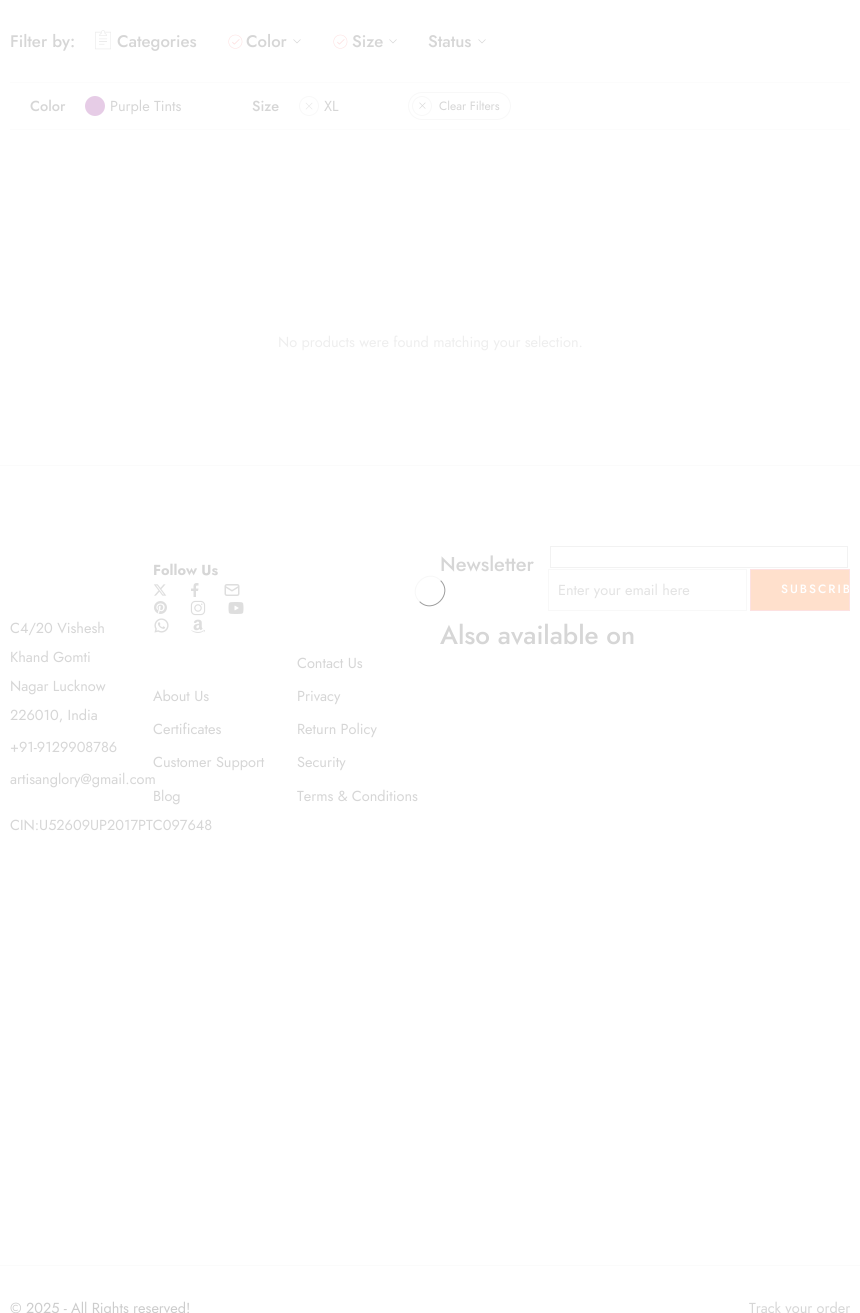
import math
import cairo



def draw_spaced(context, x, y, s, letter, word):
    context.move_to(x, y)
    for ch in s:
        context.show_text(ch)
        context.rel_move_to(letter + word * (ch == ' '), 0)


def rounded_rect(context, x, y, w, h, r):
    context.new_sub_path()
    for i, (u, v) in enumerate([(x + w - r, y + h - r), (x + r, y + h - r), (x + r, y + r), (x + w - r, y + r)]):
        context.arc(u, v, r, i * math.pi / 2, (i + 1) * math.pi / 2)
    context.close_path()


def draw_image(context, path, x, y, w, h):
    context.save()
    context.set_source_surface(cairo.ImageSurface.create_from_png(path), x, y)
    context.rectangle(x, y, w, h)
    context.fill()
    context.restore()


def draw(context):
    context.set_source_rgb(1, 1, 1)
    context.paint()
    draw_image(context, "images/1.png", 95, 30, 16, 20)
    draw_image(context, "images/2.png", 228, 34, 15, 15)
    draw_image(context, "images/3.png", 293, 39, 8, 5)
    draw_image(context, "images/2.png", 333, 34, 15, 15)
    draw_image(context, "images/3.png", 389, 39, 8, 5)
    draw_image(context, "images/3.png", 478, 39, 8, 5)
    context.set_source_rgb(252 / 255, 252 / 255, 252 / 255)
    context.rectangle(10, 82, 840, 1)
    context.fill()
    context.rectangle(10, 129, 840, 1)
    context.fill()
    context.set_source_rgb(230 / 255, 204 / 255, 230 / 255)
    context.arc(95, 106, 10, 0, 2 * math.pi)
    context.fill()
    context.arc(309, 106, 9.5, 0, 2 * math.pi)
    context.set_source_rgb(248 / 255, 248 / 255, 248 / 255)
    context.set_line_width(1)
    context.stroke()
    draw_image(context, "images/4.png", 305, 102, 8, 8)
    rounded_rect(context, 408.5, 92.5, 102, 27, 13.5)
    context.stroke()
    context.arc(422, 106, 9.5, 0, 2 * math.pi)
    context.stroke()
    draw_image(context, "images/5.png", 419, 102, 7, 7)
    context.set_source_rgb(251 / 255, 251 / 255, 251 / 255)
    context.rectangle(0, 465, 860, 1)
    context.fill()
    draw_image(context, "images/6.png", 153, 584, 14, 12)
    draw_image(context, "images/7.png", 191, 583, 8, 14)
    draw_image(context, "images/8.png", 224, 584, 16, 12)
    draw_image(context, "images/9.png", 154, 601, 13, 13)
    draw_image(context, "images/10.png", 190, 600, 16, 16)
    draw_image(context, "images/11.png", 228, 602, 16, 12)
    draw_image(context, "images/12.png", 154, 618, 15, 15)
    draw_image(context, "images/13.png", 191, 619, 14, 14)
    context.rectangle(550.5, 546.5, 297, 21)
    context.set_source_rgb(242 / 255, 242 / 255, 242 / 255)
    context.stroke()
    context.rectangle(548.5, 569.5, 198, 41)
    context.set_source_rgb(248 / 255, 248 / 255, 248 / 255)
    context.stroke()
    context.set_source_rgb(1, 224 / 255, 204 / 255)
    context.rectangle(750.5, 569.5, 99, 41)
    context.fill_preserve()
    context.set_source_rgb(253 / 255, 225 / 255, 225 / 255)
    context.stroke()
    context.set_source_rgb(251 / 255, 251 / 255, 251 / 255)
    context.rectangle(0, 1265, 860, 1)
    context.fill()
    context.new_path()
    context.move_to(440.5, 580.5)
    context.curve_to(454, 594, 433, 615, 419.5, 601.5)
    context.set_source_rgb(157 / 255, 157 / 255, 157 / 255)
    context.stroke()
    context.new_path()
    context.move_to(419.5, 601.5)
    context.curve_to(406, 588, 427, 567, 440.5, 580.5)
    context.set_source_rgb(247 / 255, 247 / 255, 247 / 255)
    context.stroke()
    context.select_font_face("Jost Medium")
    context.set_font_size(16.75)
    context.set_source_rgb(214 / 255, 214 / 255, 214 / 255)
    context.move_to(10, 47)
    context.show_text("Filter by:")
    context.move_to(117, 47)
    context.show_text("Categories")
    context.move_to(246, 47)
    context.show_text("Color")
    context.move_to(352, 47)
    context.show_text("Size")
    context.move_to(428, 47)
    context.show_text("Status")
    context.set_font_size(14.5)
    context.move_to(30, 111)
    context.show_text("Color")
    context.select_font_face("Jost")
    context.move_to(110, 111)
    context.show_text("Purple Tints")
    context.select_font_face("Jost Medium")
    context.move_to(252, 111)
    context.show_text("Size")
    context.select_font_face("Jost")
    context.move_to(324, 111)
    context.show_text("XL")
    context.set_font_size(12)
    context.move_to(439, 110)
    context.show_text("Clear Filters")
    context.set_font_size(14.5)
    context.set_source_rgb(238 / 255, 238 / 255, 238 / 255)
    context.move_to(278, 347)
    context.show_text("No products were found matching your selection.")
    context.select_font_face("Jost", cairo.FontSlant.NORMAL, cairo.FontWeight.BOLD)
    context.set_source_rgb(214 / 255, 214 / 255, 214 / 255)
    context.move_to(153, 575)
    context.show_text("Follow Us")
    context.select_font_face("Jost")
    context.move_to(153, 701)
    context.show_text("About Us")
    context.move_to(153, 734)
    context.show_text("Certificates")
    context.move_to(153, 767)
    context.show_text("Customer Support")
    context.move_to(153, 801)
    context.show_text("Blog")
    context.move_to(10, 633)
    context.show_text("C4/20 Vishesh")
    context.move_to(10, 662)
    context.show_text("Khand Gomti")
    context.move_to(10, 691)
    context.show_text("Nagar Lucknow")
    context.move_to(10, 720)
    context.show_text("226010, India")
    context.move_to(10, 752)
    context.show_text("+91-9129908786")
    context.move_to(10, 784)
    context.show_text("artisanglory@gmail.com")
    context.move_to(10, 830)
    context.show_text("CIN:U52609UP2017PTC097648")
    context.move_to(297, 668)
    context.show_text("Contact Us")
    context.move_to(297, 701)
    context.show_text("Privacy")
    context.move_to(297, 734)
    context.show_text("Return Policy")
    context.move_to(297, 767)
    context.show_text("Security")
    context.move_to(297, 801)
    context.show_text("Terms & Conditions")
    context.select_font_face("Jost Medium")
    context.set_font_size(20)
    context.move_to(440, 571)
    context.show_text("Newsletter")
    context.select_font_face("Jost")
    context.set_font_size(14.5)
    context.set_source_rgb(227 / 255, 227 / 255, 227 / 255)
    context.move_to(558, 595)
    context.show_text("Enter your email here")
    context.save()
    context.rectangle(751, 570, 98, 40)
    context.clip()
    context.select_font_face("Jost Medium")
    context.set_font_size(12)
    context.set_source_rgb(1, 1, 1)
    draw_spaced(context, 781, 593, "SUBSCRIB", 2, 0)
    context.restore()
    context.select_font_face("Jost Medium")
    context.set_font_size(26)
    context.set_source_rgb(214 / 255, 214 / 255, 214 / 255)
    context.move_to(440, 644)
    context.show_text("Also available on")
    context.select_font_face("Jost")
    context.set_font_size(14.5)
    context.set_source_rgb(204 / 255, 204 / 255, 204 / 255)
    context.move_to(10, 1313)
    context.show_text("© 2025 - All Rights reserved!")
    context.set_source_rgb(214 / 255, 214 / 255, 214 / 255)
    context.move_to(749, 1313)
    context.show_text("Track your order")


surface = cairo.ImageSurface(cairo.Format.RGB24, 860, 1313)
context = cairo.Context(surface)
options = cairo.FontOptions()
options.set_hint_metrics(cairo.HintMetrics.OFF)
options.set_hint_style(cairo.HintStyle.NONE)
context.set_font_options(options)
context.set_miter_limit(4)
draw(context)
surface.write_to_png("out.png")
